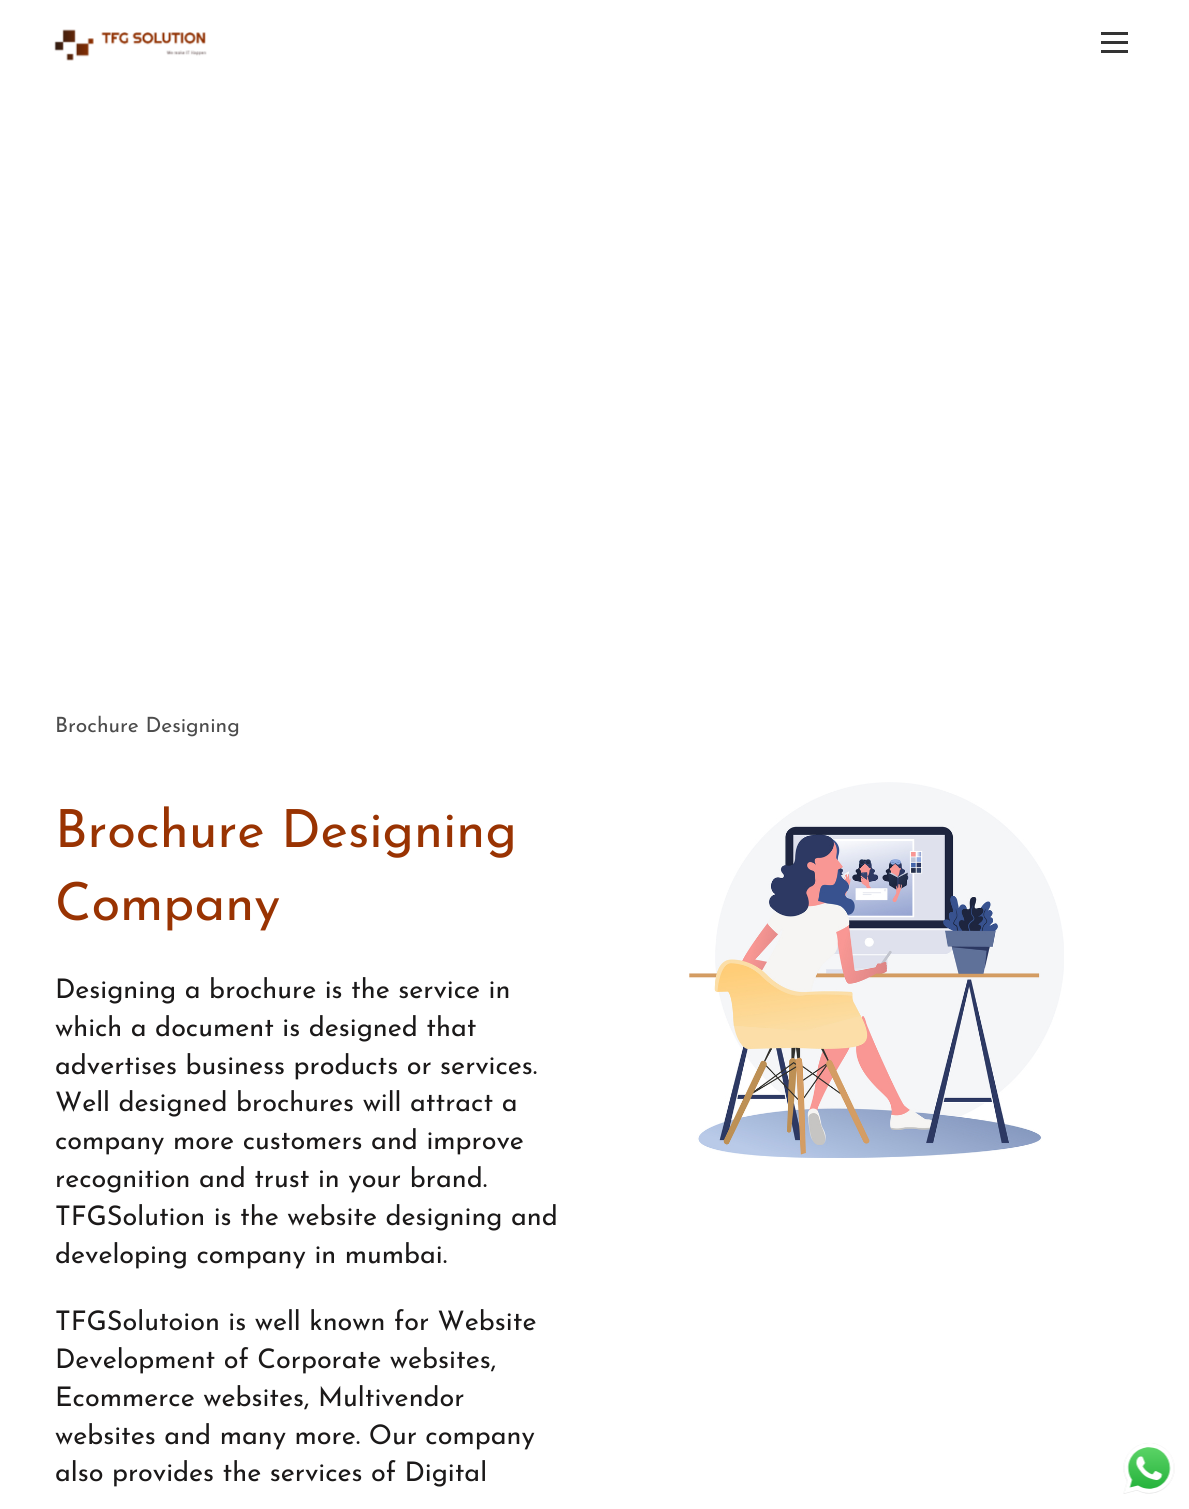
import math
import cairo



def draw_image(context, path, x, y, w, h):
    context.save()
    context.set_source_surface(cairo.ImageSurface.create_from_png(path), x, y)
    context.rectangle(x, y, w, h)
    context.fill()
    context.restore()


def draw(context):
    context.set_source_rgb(1, 1, 1)
    context.paint()
    draw_image(context, "images/1.png", 54, 29, 153, 32)
    context.set_source_rgb(51 / 255, 51 / 255, 51 / 255)
    context.rectangle(1101, 41, 27, 3)
    context.fill()
    context.rectangle(1101, 32, 27, 3)
    context.fill()
    context.rectangle(1101, 50, 27, 3)
    context.fill()
    draw_image(context, "images/2.png", 689, 782, 375, 376)
    draw_image(context, "images/3.png", 1123, 1443, 52, 51)
    context.select_font_face("Josefin Sans")
    context.set_font_size(21)
    context.set_source_rgb(76 / 255, 76 / 255, 76 / 255)
    context.move_to(55, 732)
    context.show_text("Brochure Designing")
    context.set_font_size(52.5)
    context.set_source_rgb(153 / 255, 51 / 255, 2 / 255)
    context.move_to(55, 847)
    context.show_text("Brochure Designing")
    context.move_to(55, 920)
    context.show_text("Company")
    context.set_font_size(27)
    context.set_source_rgb(27 / 255, 25 / 255, 25 / 255)
    context.move_to(55, 998)
    context.show_text("Designing a brochure is the service in")
    context.move_to(55, 1036)
    context.show_text("which a document is designed that")
    context.move_to(55, 1074)
    context.show_text("advertises business products or services.")
    context.move_to(55, 1111)
    context.show_text("Well designed brochures will attract a")
    context.move_to(55, 1149)
    context.show_text("company more customers and improve")
    context.move_to(55, 1187)
    context.show_text("recognition and trust in your brand.")
    context.move_to(55, 1225)
    context.show_text("TFGSolution is the website designing and")
    context.move_to(55, 1263)
    context.show_text("developing company in mumbai.")
    context.move_to(55, 1330)
    context.show_text("TFGSolutoion is well known for Website")
    context.move_to(55, 1368)
    context.show_text("Development of Corporate websites,")
    context.move_to(55, 1406)
    context.show_text("Ecommerce websites, Multivendor")
    context.move_to(55, 1444)
    context.show_text("websites and many more. Our company")
    context.move_to(55, 1481)
    context.show_text("also provides the services of Digital")


surface = cairo.ImageSurface(cairo.Format.RGB24, 1189, 1509)
context = cairo.Context(surface)
options = cairo.FontOptions()
options.set_hint_metrics(cairo.HintMetrics.OFF)
options.set_hint_style(cairo.HintStyle.NONE)
context.set_font_options(options)
context.set_miter_limit(4)
draw(context)
surface.write_to_png("out.png")
